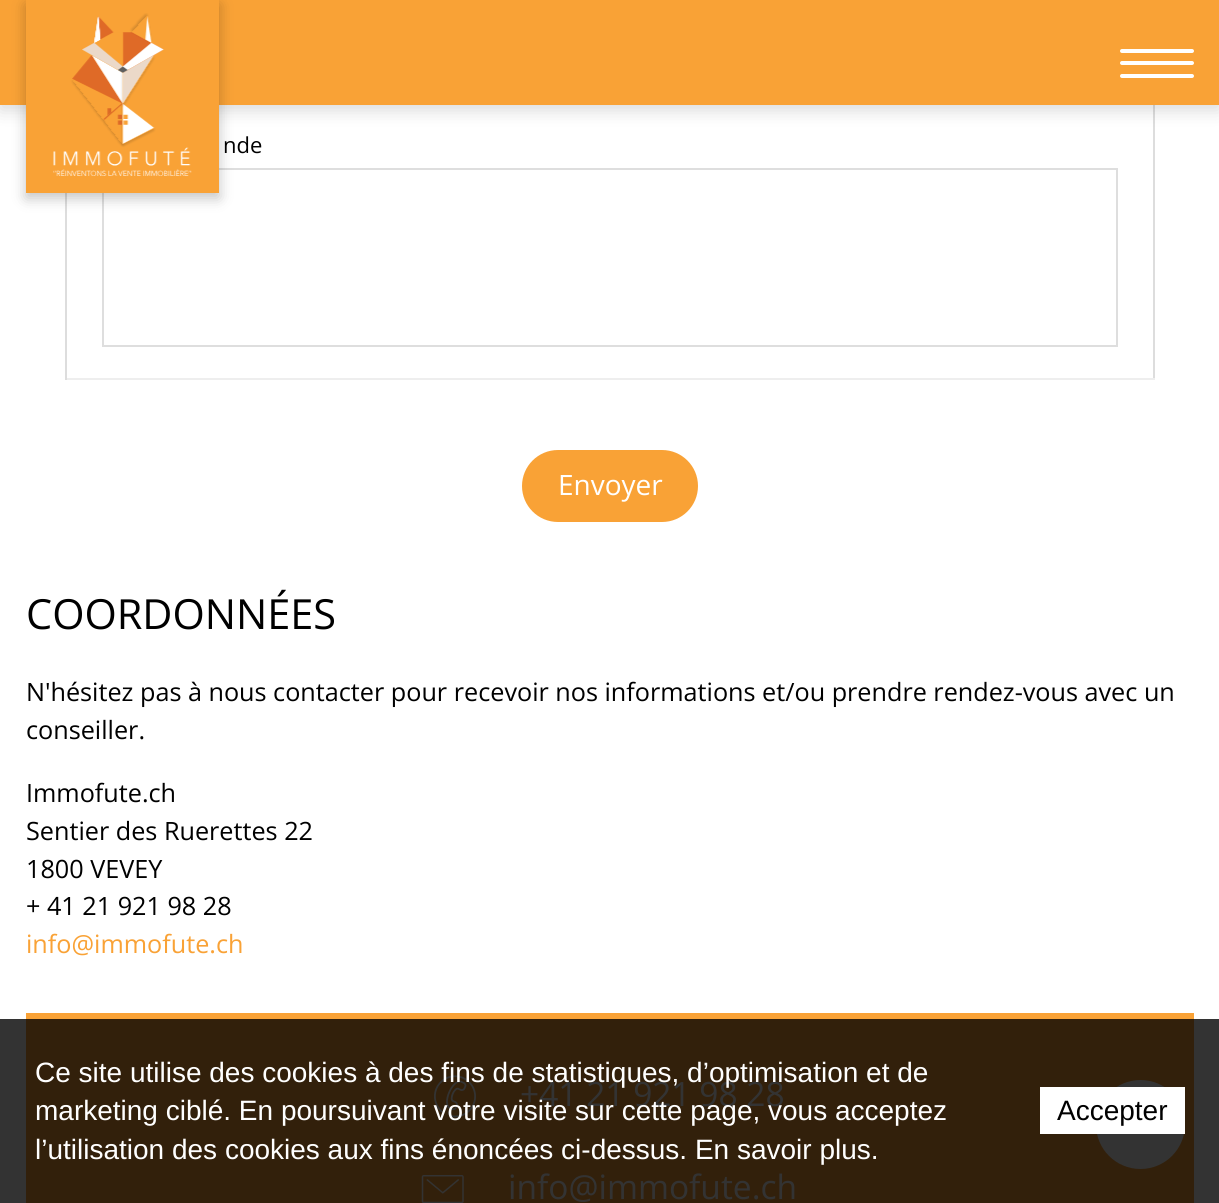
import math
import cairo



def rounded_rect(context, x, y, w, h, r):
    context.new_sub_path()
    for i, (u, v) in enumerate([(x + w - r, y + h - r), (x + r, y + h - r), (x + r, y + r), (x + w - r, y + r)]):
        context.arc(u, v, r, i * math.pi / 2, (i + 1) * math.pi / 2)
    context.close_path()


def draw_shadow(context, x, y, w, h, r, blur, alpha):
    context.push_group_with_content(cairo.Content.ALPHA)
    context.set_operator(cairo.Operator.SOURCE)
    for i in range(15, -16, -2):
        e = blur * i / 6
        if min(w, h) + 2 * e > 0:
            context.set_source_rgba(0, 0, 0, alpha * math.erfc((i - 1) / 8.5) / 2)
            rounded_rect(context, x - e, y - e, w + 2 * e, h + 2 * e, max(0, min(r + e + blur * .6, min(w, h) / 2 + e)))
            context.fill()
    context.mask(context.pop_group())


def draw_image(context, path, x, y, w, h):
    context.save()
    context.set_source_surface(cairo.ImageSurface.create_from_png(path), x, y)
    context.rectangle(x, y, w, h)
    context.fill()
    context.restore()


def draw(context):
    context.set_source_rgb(1, 1, 1)
    context.paint()
    context.set_source_rgb(51 / 255, 51 / 255, 51 / 255)
    context.rectangle(0, 1019, 1219, 184)
    context.fill()
    context.set_source_rgb(221 / 255, 221 / 255, 221 / 255)
    context.rectangle(1153, 105, 2, 275)
    context.fill()
    context.set_source_rgb(0, 0, 0)
    draw_shadow(context, 0, 5, 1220, 105, 0, 9, 0.15)
    context.set_source_rgb(249 / 255, 162 / 255, 54 / 255)
    context.rectangle(0, 0, 1219, 105)
    context.fill()
    context.set_source_rgb(238 / 255, 238 / 255, 238 / 255)
    context.rectangle(65, 378, 1090, 2)
    context.fill()
    context.set_source_rgb(221 / 255, 221 / 255, 221 / 255)
    context.rectangle(65, 193, 2, 187)
    context.fill()
    context.rectangle(103, 169, 1014, 177)
    context.set_source_rgb(222 / 255, 222 / 255, 222 / 255)
    context.stroke()
    context.set_source_rgb(0, 0, 0)
    draw_shadow(context, 26, 5, 193, 193, 0, 7, 0.24)
    context.set_source_rgb(249 / 255, 162 / 255, 54 / 255)
    context.rectangle(26, 0, 193, 193)
    context.fill()
    draw_image(context, "images/1.png", 53, 13, 139, 163)
    context.set_source_rgb(1, 1, 1)
    rounded_rect(context, 1120, 49, 74, 4, 2)
    context.fill()
    rounded_rect(context, 1120, 61, 74, 4, 2)
    context.fill()
    rounded_rect(context, 1120, 74, 74, 4, 2)
    context.fill()
    context.set_source_rgb(249 / 255, 162 / 255, 54 / 255)
    rounded_rect(context, 522, 450, 176, 72, 36)
    context.fill()
    context.rectangle(26, 1013, 1168, 6)
    context.fill()
    context.set_source_rgb(50 / 255, 32 / 255, 11 / 255)
    context.rectangle(26, 1019, 1168, 184)
    context.fill()
    draw_image(context, "images/2.png", 434, 1075, 42, 43)
    draw_image(context, "images/3.png", 421, 1175, 43, 28)
    context.set_source_rgb(51 / 255, 51 / 255, 51 / 255)
    context.arc(1140.5, 1124.5, 44.5, 0, 2 * math.pi)
    context.fill()
    context.set_source_rgb(1, 1, 1)
    context.rectangle(1040, 1087, 145, 47)
    context.fill()
    context.select_font_face("Open Sans")
    context.set_font_size(22)
    context.set_source_rgb(0, 0, 0)
    context.move_to(223, 153)
    context.show_text("nde")
    context.set_font_size(28)
    context.set_source_rgb(1, 1, 1)
    context.move_to(558, 495)
    context.show_text("Envoyer")
    context.set_font_size(41.5)
    context.set_source_rgb(0, 0, 0)
    context.move_to(26, 629)
    context.show_text("COORDONNÉES")
    context.set_font_size(25.2)
    context.move_to(26, 701)
    context.show_text("N'hésitez pas à nous contacter pour recevoir nos informations et/ou prendre rendez-vous avec un")
    context.move_to(26, 739)
    context.show_text("conseiller.")
    context.move_to(26, 802)
    context.show_text("Immofute.ch")
    context.move_to(26, 840)
    context.show_text("Sentier des Ruerettes 22")
    context.move_to(26, 878)
    context.show_text("1800 VEVEY")
    context.move_to(26, 915)
    context.show_text("+ 41 21 921 98 28")
    context.set_source_rgb(249 / 255, 162 / 255, 54 / 255)
    context.move_to(26, 953)
    context.show_text("info@immofute.ch")
    context.set_font_size(33.5)
    context.set_source_rgb(51 / 255, 51 / 255, 51 / 255)
    context.move_to(520, 1106)
    context.show_text("+41 21 921 98 28")
    context.move_to(508, 1199)
    context.show_text("info@immofute.ch")
    context.select_font_face("Liberation Sans")
    context.set_font_size(28)
    context.set_source_rgb(1, 1, 1)
    context.move_to(35, 1082)
    context.show_text("Ce site utilise des cookies à des fins de statistiques, d’optimisation et de")
    context.move_to(35, 1120)
    context.show_text("marketing ciblé. En poursuivant votre visite sur cette page, vous acceptez")
    context.move_to(35, 1159)
    context.show_text("l’utilisation des cookies aux fins énoncées ci-dessus. En savoir plus.")
    context.set_source_rgb(0, 0, 0)
    context.move_to(1057, 1120)
    context.show_text("Accepter")


surface = cairo.ImageSurface(cairo.Format.RGB24, 1219, 1203)
context = cairo.Context(surface)
options = cairo.FontOptions()
options.set_hint_metrics(cairo.HintMetrics.OFF)
options.set_hint_style(cairo.HintStyle.NONE)
context.set_font_options(options)
context.set_miter_limit(4)
draw(context)
surface.write_to_png("out.png")
